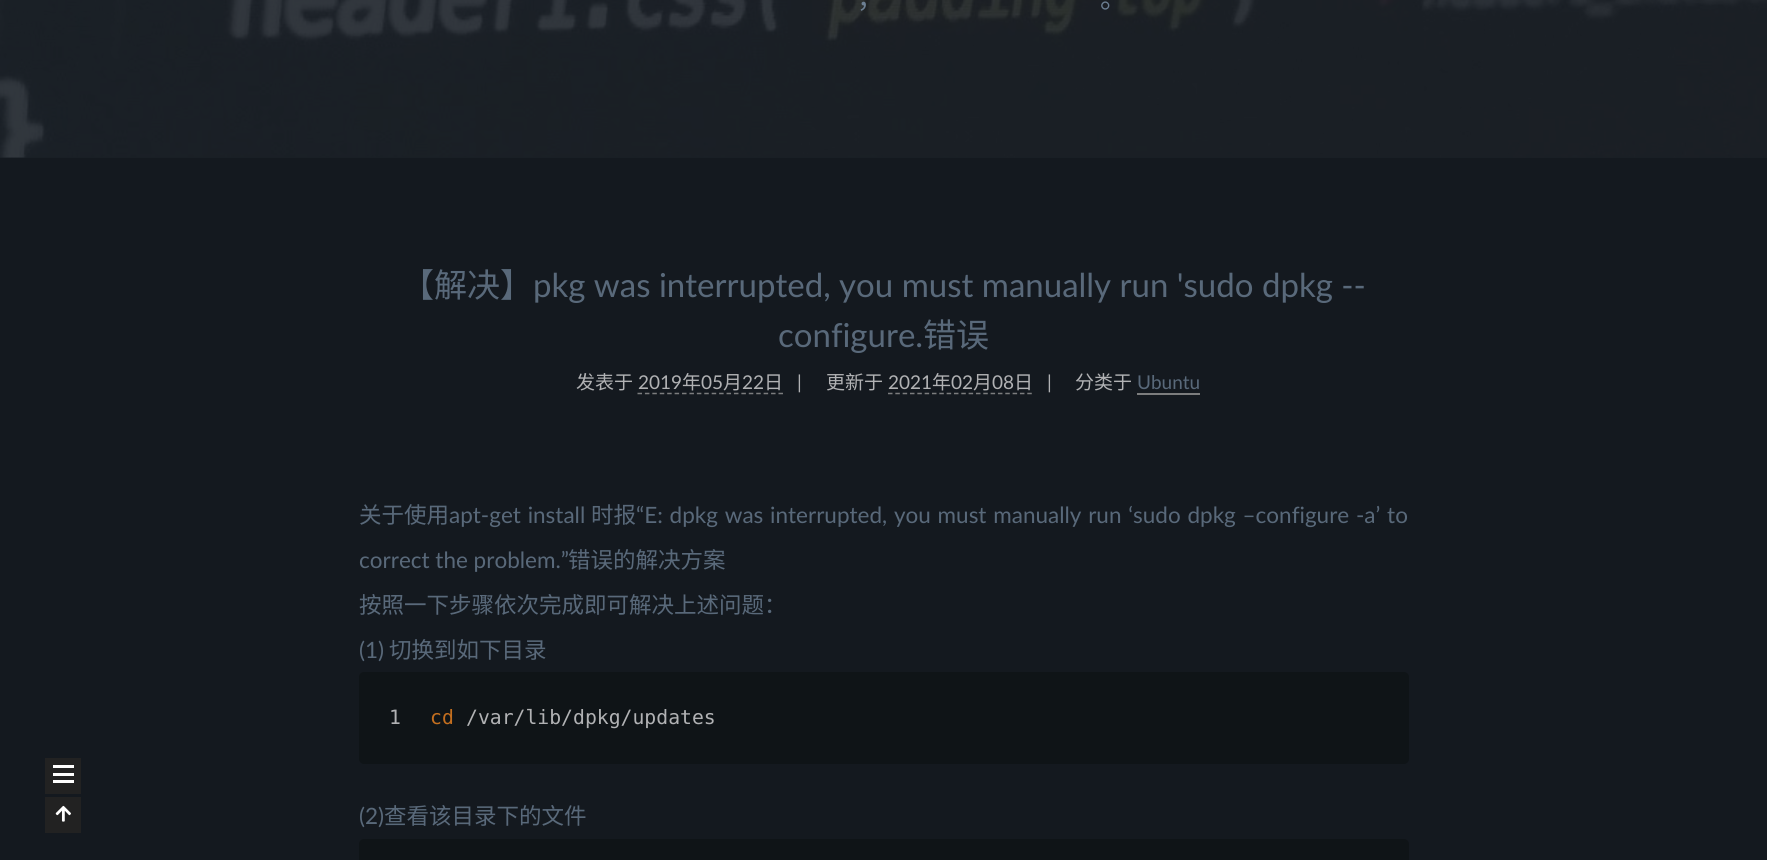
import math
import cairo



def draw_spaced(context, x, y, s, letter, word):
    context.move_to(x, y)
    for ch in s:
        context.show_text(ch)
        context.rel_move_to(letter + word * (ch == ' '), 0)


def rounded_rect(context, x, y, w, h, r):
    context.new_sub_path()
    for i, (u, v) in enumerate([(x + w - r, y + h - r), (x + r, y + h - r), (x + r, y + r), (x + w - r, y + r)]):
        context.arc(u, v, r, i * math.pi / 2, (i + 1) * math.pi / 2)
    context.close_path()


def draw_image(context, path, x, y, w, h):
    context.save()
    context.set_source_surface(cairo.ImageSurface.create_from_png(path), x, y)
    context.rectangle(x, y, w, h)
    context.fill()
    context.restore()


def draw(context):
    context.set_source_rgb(20 / 255, 25 / 255, 31 / 255)
    context.paint()
    context.set_source_rgb(24 / 255, 30 / 255, 36 / 255)
    context.rectangle(0, 157, 1767, 1)
    context.fill()
    draw_image(context, "images/1.png", 0, 0, 1767, 158)
    context.set_source_rgb(34 / 255, 34 / 255, 34 / 255)
    context.rectangle(45, 797, 36, 36)
    context.fill()
    draw_image(context, "images/2.png", 55, 805, 16, 17)
    context.rectangle(45, 758, 36, 36)
    context.fill()
    context.set_source_rgb(1, 1, 1)
    context.rectangle(53, 765, 21, 3)
    context.fill()
    context.rectangle(53, 773, 21, 3)
    context.fill()
    context.rectangle(53, 780, 21, 3)
    context.fill()
    context.new_path()
    context.move_to(637.5, 393.5)
    context.line_to(783, 393.5)
    context.set_source_rgb(124 / 255, 125 / 255, 126 / 255)
    context.set_line_width(1.5)
    context.set_dash([4.5, 2.92])
    context.stroke()
    context.new_path()
    context.move_to(888, 393.5)
    context.line_to(1032, 393.5)
    context.set_dash([4.5, 2.83])
    context.stroke()
    context.rectangle(1137, 393, 63, 2)
    context.fill()
    context.set_source_rgb(15 / 255, 20 / 255, 23 / 255)
    rounded_rect(context, 359, 672, 1050, 92, 5)
    context.fill()
    rounded_rect(context, 359, 839, 1050, 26, 5)
    context.fill()
    context.select_font_face("Noto Sans CJK SC")
    context.set_font_size(27)
    context.set_source_rgb(108 / 255, 127 / 255, 147 / 255)
    context.move_to(857, 8)
    context.show_text("，")
    context.move_to(1100, 8)
    context.show_text("。")
    context.set_font_size(33)
    context.set_source_rgb(89 / 255, 105 / 255, 122 / 255)
    context.move_to(401, 297)
    context.show_text("【解决】")
    context.select_font_face("Lato")
    context.move_to(533, 297)
    context.show_text("pkg was interrupted, you must manually run 'sudo dpkg --")
    context.move_to(778, 347)
    context.show_text("configure.")
    context.select_font_face("Noto Sans CJK SC")
    context.move_to(923, 347)
    context.show_text("错误")
    context.set_font_size(19)
    context.set_source_rgb(177 / 255, 178 / 255, 180 / 255)
    context.move_to(576, 389)
    context.show_text("发表于")
    context.select_font_face("Lato")
    context.move_to(638, 389)
    context.show_text("2019")
    context.select_font_face("Noto Sans CJK SC")
    context.move_to(682, 389)
    context.show_text("年")
    context.select_font_face("Lato")
    context.move_to(701, 389)
    context.show_text("05")
    context.select_font_face("Noto Sans CJK SC")
    context.move_to(723, 389)
    context.show_text("月")
    context.select_font_face("Lato")
    context.move_to(742, 389)
    context.show_text("22")
    context.select_font_face("Noto Sans CJK SC")
    context.move_to(764, 389)
    context.show_text("日")
    context.select_font_face("Lato")
    context.move_to(797, 389)
    context.show_text("|")
    context.select_font_face("Noto Sans CJK SC")
    context.move_to(826, 389)
    context.show_text("更新于")
    context.select_font_face("Lato")
    context.move_to(888, 389)
    context.show_text("2021")
    context.select_font_face("Noto Sans CJK SC")
    context.move_to(932, 389)
    context.show_text("年")
    context.select_font_face("Lato")
    context.move_to(951, 389)
    context.show_text("02")
    context.select_font_face("Noto Sans CJK SC")
    context.move_to(973, 389)
    context.show_text("月")
    context.select_font_face("Lato")
    context.move_to(992, 389)
    context.show_text("08")
    context.select_font_face("Noto Sans CJK SC")
    context.move_to(1014, 389)
    context.show_text("日")
    context.select_font_face("Lato")
    context.move_to(1047, 389)
    context.show_text("|")
    context.select_font_face("Noto Sans CJK SC")
    context.move_to(1075, 389)
    context.show_text("分类于")
    context.select_font_face("Lato")
    context.set_source_rgb(89 / 255, 105 / 255, 122 / 255)
    context.move_to(1137, 389)
    context.show_text("Ubuntu")
    context.select_font_face("Noto Sans CJK SC")
    context.set_font_size(22.5)
    context.move_to(359, 523)
    context.show_text("关于使用")
    context.select_font_face("Lato")
    draw_spaced(context, 449, 523, "apt-get install", 0, 1)
    context.select_font_face("Noto Sans CJK SC")
    context.move_to(591, 523)
    context.show_text("时报")
    context.select_font_face("Lato")
    draw_spaced(context, 636, 523, "“E: dpkg was interrupted, you must manually run ‘sudo dpkg –configure -a’ to", 0, 1)
    context.move_to(359, 568)
    context.show_text("correct the problem.”")
    context.select_font_face("Noto Sans CJK SC")
    context.move_to(568, 568)
    context.show_text("错误的解决方案")
    context.move_to(359, 613)
    context.show_text("按照一下步骤依次完成即可解决上述问题：")
    context.select_font_face("Lato")
    context.move_to(359, 658)
    context.show_text("(1)")
    context.select_font_face("Noto Sans CJK SC")
    context.move_to(389, 658)
    context.show_text("切换到如下目录")
    context.select_font_face("DejaVu Sans Mono")
    context.set_font_size(19.75)
    context.set_source_rgb(177 / 255, 178 / 255, 180 / 255)
    context.move_to(389, 724)
    context.show_text("1")
    context.set_source_rgb(196 / 255, 111 / 255, 31 / 255)
    context.move_to(430, 724)
    context.show_text("cd")
    context.set_source_rgb(177 / 255, 178 / 255, 180 / 255)
    context.move_to(466, 724)
    context.show_text("/var/lib/dpkg/updates")
    context.select_font_face("Lato")
    context.set_font_size(22.5)
    context.set_source_rgb(89 / 255, 105 / 255, 122 / 255)
    context.move_to(359, 824)
    context.show_text("(2)")
    context.select_font_face("Noto Sans CJK SC")
    context.move_to(384, 824)
    context.show_text("查看该目录下的文件")


surface = cairo.ImageSurface(cairo.Format.RGB24, 1767, 860)
context = cairo.Context(surface)
options = cairo.FontOptions()
options.set_hint_metrics(cairo.HintMetrics.OFF)
options.set_hint_style(cairo.HintStyle.NONE)
context.set_font_options(options)
context.set_miter_limit(4)
draw(context)
surface.write_to_png("out.png")
